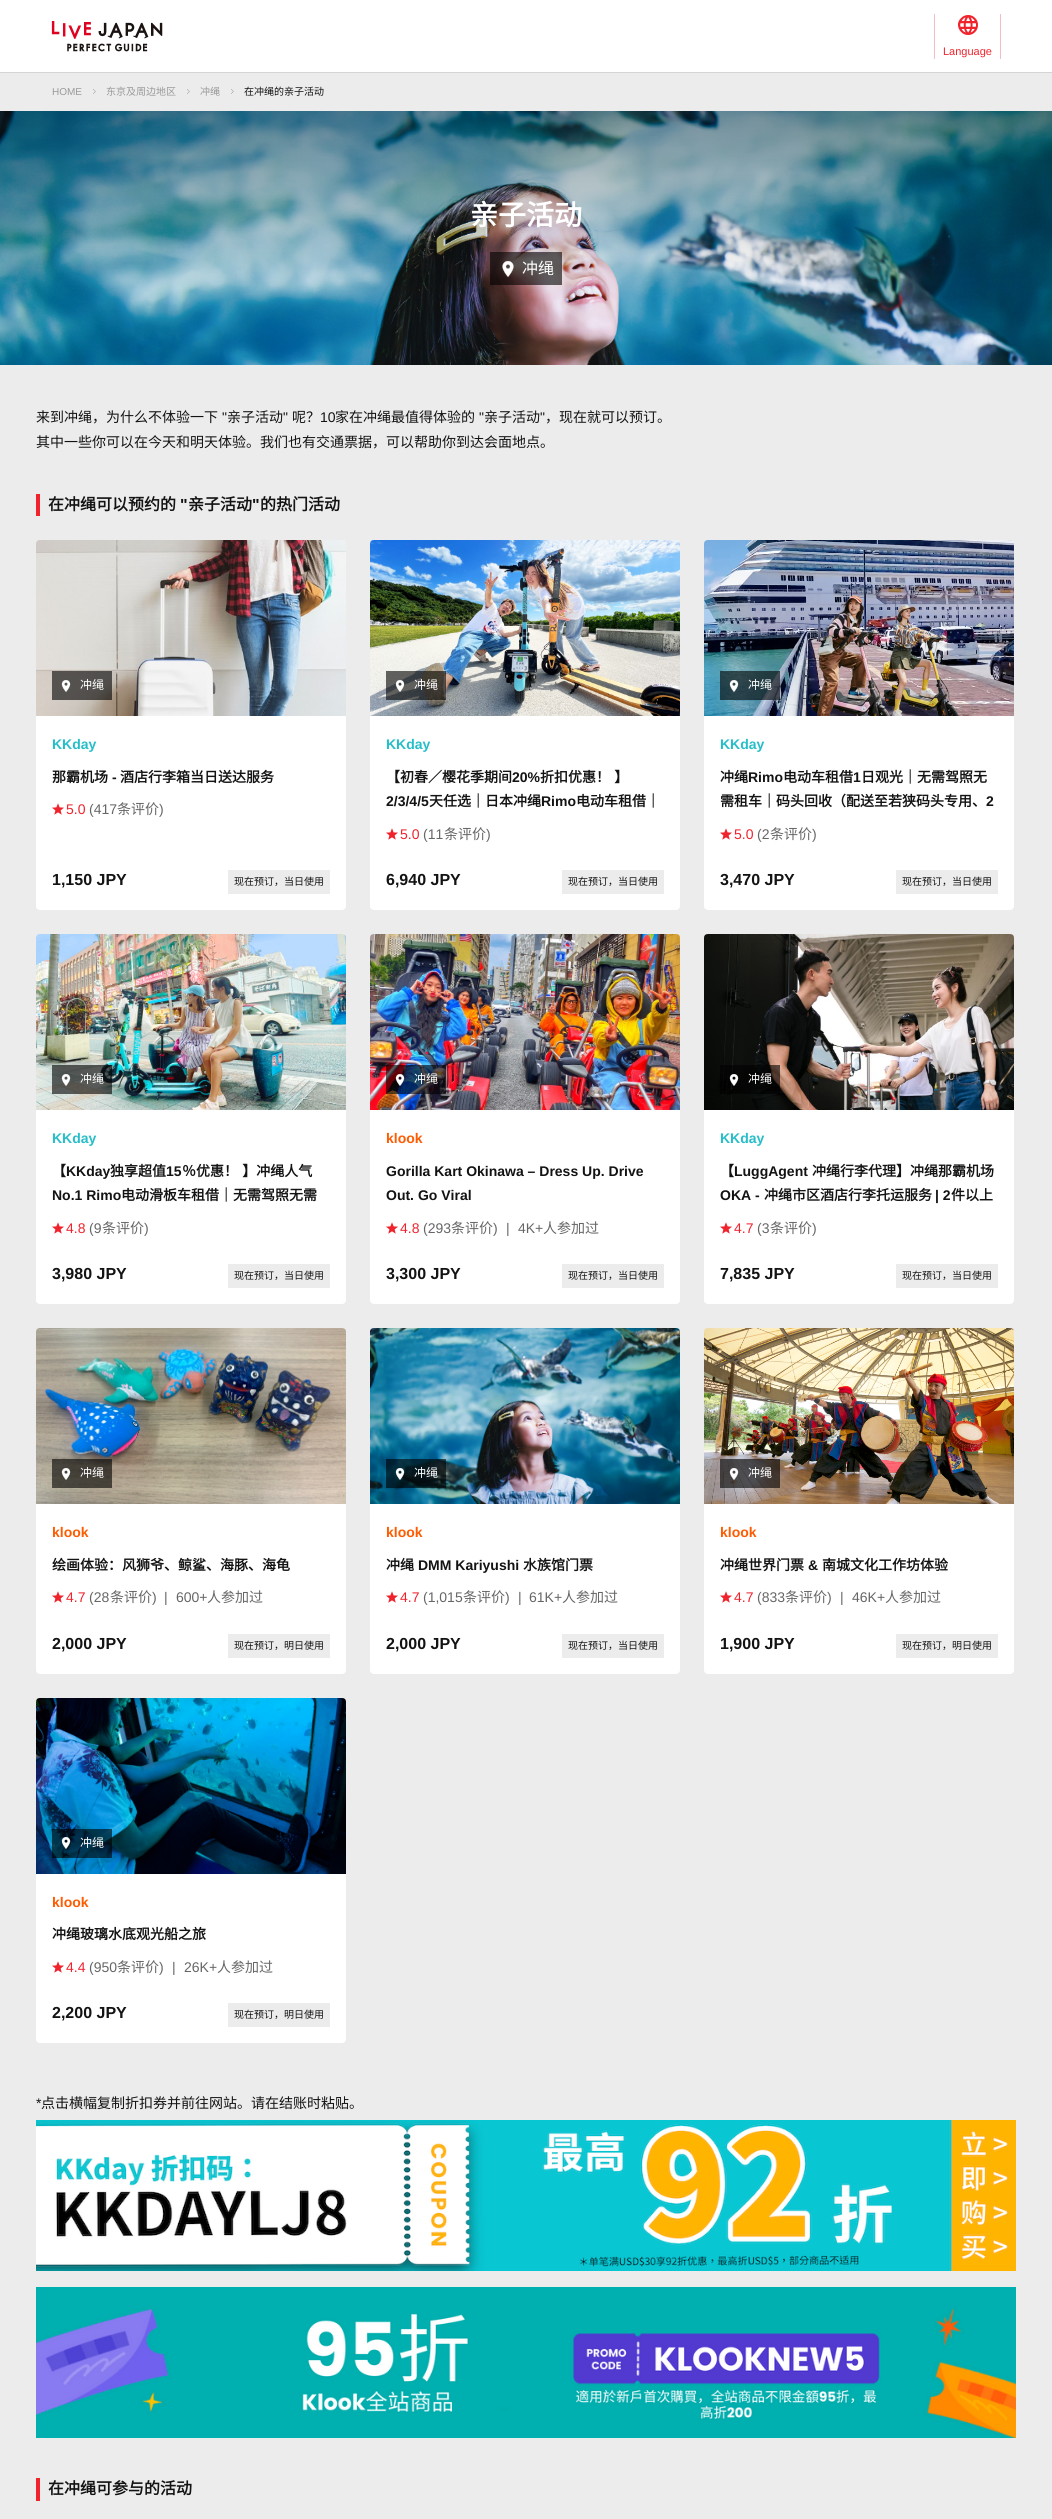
import math
import cairo



def draw_spaced(context, x, y, s, letter, word):
    context.move_to(x, y)
    for ch in s:
        context.show_text(ch)
        context.rel_move_to(letter + word * (ch == ' '), 0)


def rounded_rect(context, x, y, w, h, r):
    context.new_sub_path()
    for i, (u, v) in enumerate([(x + w - r, y + h - r), (x + r, y + h - r), (x + r, y + r), (x + w - r, y + r)]):
        context.arc(u, v, r, i * math.pi / 2, (i + 1) * math.pi / 2)
    context.close_path()


def draw_image(context, path, x, y, w, h):
    context.save()
    context.set_source_surface(cairo.ImageSurface.create_from_png(path), x, y)
    context.rectangle(x, y, w, h)
    context.fill()
    context.restore()


def draw(context):
    context.set_source_rgb(1, 1, 1)
    context.paint()
    context.set_source_rgb(212 / 255, 212 / 255, 212 / 255)
    context.rectangle(0, 72, 1052, 1)
    context.fill()
    draw_image(context, "images/1.png", 51, 21, 112, 31)
    context.set_source_rgb(247 / 255, 187 / 255, 194 / 255)
    context.rectangle(1000, 14, 1, 45)
    context.fill()
    context.rectangle(934, 14, 1, 45)
    context.fill()
    draw_image(context, "images/2.png", 958, 15, 20, 20)
    context.set_source_rgb(236 / 255, 236 / 255, 236 / 255)
    context.rectangle(0, 73, 1052, 2446)
    context.fill()
    draw_image(context, "images/3.png", 93, 89, 3, 5)
    draw_image(context, "images/3.png", 187, 89, 3, 5)
    draw_image(context, "images/3.png", 231, 89, 3, 5)
    draw_image(context, "images/4.png", 0, 111, 1052, 254)
    context.set_source_rgba(0, 0, 0, 0.6)
    context.rectangle(490, 252, 72, 33)
    context.fill()
    draw_image(context, "images/5.png", 502, 261, 12, 16)
    context.set_source_rgb(240 / 255, 35 / 255, 45 / 255)
    context.rectangle(36, 494, 4, 22)
    context.fill()
    context.set_source_rgb(1, 1, 1)
    rounded_rect(context, 36, 540, 310, 370, 4)
    context.fill()
    draw_image(context, "images/6.png", 36, 540, 310, 176)
    context.set_source_rgba(0, 0, 0, 0.6)
    context.rectangle(52, 671, 60, 29)
    context.fill()
    draw_image(context, "images/7.png", 61, 680, 10, 12)
    draw_image(context, "images/8.png", 52, 803, 12, 12)
    context.set_source_rgb(236 / 255, 236 / 255, 236 / 255)
    context.rectangle(228, 870, 102, 24)
    context.fill()
    context.set_source_rgb(1, 1, 1)
    rounded_rect(context, 370, 540, 310, 370, 4)
    context.fill()
    draw_image(context, "images/9.png", 370, 540, 310, 176)
    context.set_source_rgba(0, 0, 0, 0.6)
    context.rectangle(386, 671, 60, 29)
    context.fill()
    draw_image(context, "images/10.png", 395, 680, 10, 12)
    draw_image(context, "images/8.png", 386, 828, 12, 12)
    context.set_source_rgb(236 / 255, 236 / 255, 236 / 255)
    context.rectangle(562, 870, 102, 24)
    context.fill()
    context.set_source_rgb(1, 1, 1)
    rounded_rect(context, 704, 540, 310, 370, 4)
    context.fill()
    draw_image(context, "images/11.png", 704, 540, 310, 176)
    context.set_source_rgba(0, 0, 0, 0.6)
    context.rectangle(720, 671, 60, 29)
    context.fill()
    draw_image(context, "images/12.png", 729, 680, 10, 12)
    draw_image(context, "images/8.png", 720, 828, 12, 12)
    context.set_source_rgb(236 / 255, 236 / 255, 236 / 255)
    context.rectangle(896, 870, 102, 24)
    context.fill()
    context.set_source_rgb(1, 1, 1)
    rounded_rect(context, 36, 934, 310, 370, 4)
    context.fill()
    draw_image(context, "images/13.png", 36, 934, 310, 176)
    context.set_source_rgba(0, 0, 0, 0.6)
    context.rectangle(52, 1065, 60, 29)
    context.fill()
    draw_image(context, "images/14.png", 61, 1074, 10, 12)
    draw_image(context, "images/8.png", 52, 1222, 12, 12)
    context.set_source_rgb(236 / 255, 236 / 255, 236 / 255)
    context.rectangle(228, 1264, 102, 24)
    context.fill()
    context.set_source_rgb(1, 1, 1)
    rounded_rect(context, 370, 934, 310, 370, 4)
    context.fill()
    draw_image(context, "images/15.png", 370, 934, 310, 176)
    context.set_source_rgba(0, 0, 0, 0.6)
    context.rectangle(386, 1065, 60, 29)
    context.fill()
    draw_image(context, "images/16.png", 395, 1074, 10, 12)
    draw_image(context, "images/8.png", 386, 1222, 12, 12)
    context.set_source_rgb(236 / 255, 236 / 255, 236 / 255)
    context.rectangle(562, 1264, 102, 24)
    context.fill()
    context.set_source_rgb(1, 1, 1)
    rounded_rect(context, 704, 934, 310, 370, 4)
    context.fill()
    draw_image(context, "images/17.png", 704, 934, 310, 176)
    context.set_source_rgba(0, 0, 0, 0.6)
    context.rectangle(720, 1065, 60, 29)
    context.fill()
    draw_image(context, "images/18.png", 729, 1074, 10, 12)
    draw_image(context, "images/8.png", 720, 1222, 12, 12)
    context.set_source_rgb(236 / 255, 236 / 255, 236 / 255)
    context.rectangle(896, 1264, 102, 24)
    context.fill()
    context.set_source_rgb(1, 1, 1)
    rounded_rect(context, 36, 1328, 310, 346, 4)
    context.fill()
    draw_image(context, "images/19.png", 36, 1328, 310, 176)
    context.set_source_rgba(0, 0, 0, 0.6)
    context.rectangle(52, 1459, 60, 29)
    context.fill()
    draw_image(context, "images/20.png", 61, 1468, 10, 12)
    draw_image(context, "images/8.png", 52, 1591, 12, 12)
    context.set_source_rgb(236 / 255, 236 / 255, 236 / 255)
    context.rectangle(228, 1634, 102, 24)
    context.fill()
    context.set_source_rgb(1, 1, 1)
    rounded_rect(context, 370, 1328, 310, 346, 4)
    context.fill()
    draw_image(context, "images/21.png", 370, 1328, 310, 176)
    context.set_source_rgba(0, 0, 0, 0.6)
    context.rectangle(386, 1459, 60, 29)
    context.fill()
    draw_image(context, "images/22.png", 395, 1468, 10, 12)
    draw_image(context, "images/8.png", 386, 1591, 12, 12)
    context.set_source_rgb(236 / 255, 236 / 255, 236 / 255)
    context.rectangle(562, 1634, 102, 24)
    context.fill()
    context.set_source_rgb(1, 1, 1)
    rounded_rect(context, 704, 1328, 310, 346, 4)
    context.fill()
    draw_image(context, "images/23.png", 704, 1328, 310, 176)
    context.set_source_rgba(0, 0, 0, 0.6)
    context.rectangle(720, 1459, 60, 29)
    context.fill()
    draw_image(context, "images/24.png", 729, 1468, 10, 12)
    draw_image(context, "images/8.png", 720, 1591, 12, 12)
    context.set_source_rgb(236 / 255, 236 / 255, 236 / 255)
    context.rectangle(896, 1634, 102, 24)
    context.fill()
    context.set_source_rgb(1, 1, 1)
    rounded_rect(context, 36, 1698, 310, 345, 4)
    context.fill()
    draw_image(context, "images/25.png", 36, 1698, 310, 176)
    context.set_source_rgba(0, 0, 0, 0.6)
    context.rectangle(52, 1829, 60, 29)
    context.fill()
    draw_image(context, "images/26.png", 61, 1837, 10, 12)
    draw_image(context, "images/8.png", 52, 1961, 12, 12)
    context.set_source_rgb(236 / 255, 236 / 255, 236 / 255)
    context.rectangle(228, 2003, 102, 24)
    context.fill()
    draw_image(context, "images/27.png", 36, 2120, 980, 151)
    draw_image(context, "images/28.png", 36, 2287, 980, 151)
    context.set_source_rgb(240 / 255, 35 / 255, 45 / 255)
    context.rectangle(36, 2478, 4, 23)
    context.fill()
    context.select_font_face("Liberation Sans")
    context.set_font_size(11)
    context.move_to(943, 55)
    context.show_text("Language")
    context.set_font_size(10)
    context.set_source_rgb(153 / 255, 153 / 255, 153 / 255)
    context.move_to(52, 95)
    context.show_text("HOME")
    context.select_font_face("Noto Sans CJK SC")
    context.move_to(106, 95)
    context.show_text("东京及周边地区")
    context.move_to(200, 95)
    context.show_text("冲绳")
    context.set_source_rgb(19 / 255, 19 / 255, 19 / 255)
    context.move_to(244, 95)
    context.show_text("在冲绳的亲子活动")
    context.select_font_face("Noto Sans CJK SC", cairo.FontSlant.NORMAL, cairo.FontWeight.BOLD)
    context.set_font_size(28)
    context.set_source_rgb(1, 1, 1)
    context.move_to(470, 225)
    context.show_text("亲子活动")
    context.select_font_face("Noto Sans CJK SC")
    context.set_font_size(16)
    context.move_to(522, 274)
    context.show_text("冲绳")
    context.set_font_size(14)
    context.set_source_rgb(19 / 255, 19 / 255, 19 / 255)
    context.move_to(36, 422)
    context.show_text("来到冲绳，为什么不体验一下")
    context.select_font_face("Liberation Sans")
    context.move_to(222, 422)
    context.show_text("\"")
    context.select_font_face("Noto Sans CJK SC")
    context.move_to(227, 422)
    context.show_text("亲子活动")
    context.select_font_face("Liberation Sans")
    context.move_to(283, 422)
    context.show_text("\"")
    context.select_font_face("Noto Sans CJK SC")
    context.move_to(292, 422)
    context.show_text("呢？")
    context.select_font_face("Liberation Sans")
    context.move_to(320, 422)
    context.show_text("10")
    context.select_font_face("Noto Sans CJK SC")
    context.move_to(335, 422)
    context.show_text("家在冲绳最值得体验的")
    context.select_font_face("Liberation Sans")
    context.move_to(479, 422)
    context.show_text("\"")
    context.select_font_face("Noto Sans CJK SC")
    context.move_to(484, 422)
    context.show_text("亲子活动")
    context.select_font_face("Liberation Sans")
    context.move_to(540, 422)
    context.show_text("\"")
    context.select_font_face("Noto Sans CJK SC")
    context.move_to(545, 422)
    context.show_text("，现在就可以预订。")
    context.move_to(36, 447)
    context.show_text("其中一些你可以在今天和明天体验。我们也有交通票据，可以帮助你到达会面地点。")
    context.select_font_face("Noto Sans CJK SC", cairo.FontSlant.NORMAL, cairo.FontWeight.BOLD)
    context.set_font_size(16)
    context.move_to(48, 510)
    context.show_text("在冲绳可以预约的")
    context.select_font_face("Liberation Sans", cairo.FontSlant.NORMAL, cairo.FontWeight.BOLD)
    context.move_to(180, 510)
    context.show_text("\"")
    context.select_font_face("Noto Sans CJK SC", cairo.FontSlant.NORMAL, cairo.FontWeight.BOLD)
    context.move_to(188, 510)
    context.show_text("亲子活动")
    context.select_font_face("Liberation Sans", cairo.FontSlant.NORMAL, cairo.FontWeight.BOLD)
    context.move_to(252, 510)
    context.show_text("\"")
    context.select_font_face("Noto Sans CJK SC", cairo.FontSlant.NORMAL, cairo.FontWeight.BOLD)
    context.move_to(260, 510)
    context.show_text("的热门活动")
    context.select_font_face("Noto Sans CJK SC")
    context.set_font_size(12)
    context.set_source_rgb(1, 1, 1)
    context.move_to(80, 689)
    context.show_text("冲绳")
    context.select_font_face("Liberation Sans", cairo.FontSlant.NORMAL, cairo.FontWeight.BOLD)
    context.set_font_size(14)
    context.set_source_rgb(38 / 255, 190 / 255, 201 / 255)
    context.move_to(52, 749)
    context.show_text("KKday")
    context.select_font_face("Noto Sans CJK SC", cairo.FontSlant.NORMAL, cairo.FontWeight.BOLD)
    context.set_source_rgb(19 / 255, 19 / 255, 19 / 255)
    context.move_to(52, 782)
    context.show_text("那霸机场")
    context.select_font_face("Liberation Sans", cairo.FontSlant.NORMAL, cairo.FontWeight.BOLD)
    context.move_to(112, 782)
    context.show_text("-")
    context.select_font_face("Noto Sans CJK SC", cairo.FontSlant.NORMAL, cairo.FontWeight.BOLD)
    context.move_to(120, 782)
    context.show_text("酒店行李箱当日送达服务")
    context.select_font_face("Liberation Sans")
    context.set_source_rgb(240 / 255, 35 / 255, 45 / 255)
    context.move_to(66, 814)
    context.show_text("5.0")
    context.set_source_rgb(102 / 255, 102 / 255, 102 / 255)
    context.move_to(89, 814)
    context.show_text("(417")
    context.select_font_face("Noto Sans CJK SC")
    context.move_to(117, 814)
    context.show_text("条评价")
    context.select_font_face("Liberation Sans")
    context.move_to(159, 814)
    context.show_text(")")
    context.select_font_face("Liberation Sans", cairo.FontSlant.NORMAL, cairo.FontWeight.BOLD)
    context.set_font_size(16)
    context.set_source_rgb(19 / 255, 19 / 255, 19 / 255)
    context.move_to(52, 885)
    context.show_text("1,150 JPY")
    context.select_font_face("Noto Sans CJK SC")
    context.set_font_size(10)
    context.move_to(234, 885)
    context.show_text("现在预订，当日使用")
    context.set_font_size(12)
    context.set_source_rgb(1, 1, 1)
    context.move_to(414, 689)
    context.show_text("冲绳")
    context.select_font_face("Liberation Sans", cairo.FontSlant.NORMAL, cairo.FontWeight.BOLD)
    context.set_font_size(14)
    context.set_source_rgb(38 / 255, 190 / 255, 201 / 255)
    context.move_to(386, 749)
    context.show_text("KKday")
    context.select_font_face("Noto Sans CJK SC", cairo.FontSlant.NORMAL, cairo.FontWeight.BOLD)
    context.set_source_rgb(19 / 255, 19 / 255, 19 / 255)
    context.move_to(386, 782)
    context.show_text("【初春／樱花季期间")
    context.select_font_face("Liberation Sans", cairo.FontSlant.NORMAL, cairo.FontWeight.BOLD)
    context.move_to(512, 782)
    context.show_text("20%")
    context.select_font_face("Noto Sans CJK SC", cairo.FontSlant.NORMAL, cairo.FontWeight.BOLD)
    draw_spaced(context, 540, 782, "折扣优惠！ 】", 0, 1)
    context.select_font_face("Liberation Sans", cairo.FontSlant.NORMAL, cairo.FontWeight.BOLD)
    context.move_to(386, 806)
    context.show_text("2/3/4/5")
    context.select_font_face("Noto Sans CJK SC", cairo.FontSlant.NORMAL, cairo.FontWeight.BOLD)
    context.move_to(429, 806)
    context.show_text("天任选｜日本冲绳")
    context.select_font_face("Liberation Sans", cairo.FontSlant.NORMAL, cairo.FontWeight.BOLD)
    context.move_to(541, 806)
    context.show_text("Rimo")
    context.select_font_face("Noto Sans CJK SC", cairo.FontSlant.NORMAL, cairo.FontWeight.BOLD)
    context.move_to(576, 806)
    context.show_text("电动车租借｜")
    context.select_font_face("Liberation Sans")
    context.set_source_rgb(240 / 255, 35 / 255, 45 / 255)
    context.move_to(400, 839)
    context.show_text("5.0")
    context.set_source_rgb(102 / 255, 102 / 255, 102 / 255)
    context.move_to(423, 839)
    context.show_text("(11")
    context.select_font_face("Noto Sans CJK SC")
    context.move_to(444, 839)
    context.show_text("条评价")
    context.select_font_face("Liberation Sans")
    context.move_to(486, 839)
    context.show_text(")")
    context.select_font_face("Liberation Sans", cairo.FontSlant.NORMAL, cairo.FontWeight.BOLD)
    context.set_font_size(16)
    context.set_source_rgb(19 / 255, 19 / 255, 19 / 255)
    context.move_to(386, 885)
    context.show_text("6,940 JPY")
    context.select_font_face("Noto Sans CJK SC")
    context.set_font_size(10)
    context.move_to(568, 885)
    context.show_text("现在预订，当日使用")
    context.set_font_size(12)
    context.set_source_rgb(1, 1, 1)
    context.move_to(748, 689)
    context.show_text("冲绳")
    context.select_font_face("Liberation Sans", cairo.FontSlant.NORMAL, cairo.FontWeight.BOLD)
    context.set_font_size(14)
    context.set_source_rgb(38 / 255, 190 / 255, 201 / 255)
    context.move_to(720, 749)
    context.show_text("KKday")
    context.select_font_face("Noto Sans CJK SC", cairo.FontSlant.NORMAL, cairo.FontWeight.BOLD)
    context.set_source_rgb(19 / 255, 19 / 255, 19 / 255)
    context.move_to(720, 782)
    context.show_text("冲绳")
    context.select_font_face("Liberation Sans", cairo.FontSlant.NORMAL, cairo.FontWeight.BOLD)
    context.move_to(748, 782)
    context.show_text("Rimo")
    context.select_font_face("Noto Sans CJK SC", cairo.FontSlant.NORMAL, cairo.FontWeight.BOLD)
    context.move_to(783, 782)
    context.show_text("电动车租借")
    context.select_font_face("Liberation Sans", cairo.FontSlant.NORMAL, cairo.FontWeight.BOLD)
    context.move_to(853, 782)
    context.show_text("1")
    context.select_font_face("Noto Sans CJK SC", cairo.FontSlant.NORMAL, cairo.FontWeight.BOLD)
    context.move_to(861, 782)
    context.show_text("日观光｜无需驾照无")
    context.move_to(720, 806)
    context.show_text("需租车｜码头回收（配送至若狭码头专用、")
    context.select_font_face("Liberation Sans", cairo.FontSlant.NORMAL, cairo.FontWeight.BOLD)
    context.move_to(986, 806)
    context.show_text("2")
    context.select_font_face("Liberation Sans")
    context.set_source_rgb(240 / 255, 35 / 255, 45 / 255)
    context.move_to(734, 839)
    context.show_text("5.0")
    context.set_source_rgb(102 / 255, 102 / 255, 102 / 255)
    context.move_to(757, 839)
    context.show_text("(2")
    context.select_font_face("Noto Sans CJK SC")
    context.move_to(770, 839)
    context.show_text("条评价")
    context.select_font_face("Liberation Sans")
    context.move_to(812, 839)
    context.show_text(")")
    context.select_font_face("Liberation Sans", cairo.FontSlant.NORMAL, cairo.FontWeight.BOLD)
    context.set_font_size(16)
    context.set_source_rgb(19 / 255, 19 / 255, 19 / 255)
    context.move_to(720, 885)
    context.show_text("3,470 JPY")
    context.select_font_face("Noto Sans CJK SC")
    context.set_font_size(10)
    context.move_to(902, 885)
    context.show_text("现在预订，当日使用")
    context.set_font_size(12)
    context.set_source_rgb(1, 1, 1)
    context.move_to(80, 1083)
    context.show_text("冲绳")
    context.select_font_face("Liberation Sans", cairo.FontSlant.NORMAL, cairo.FontWeight.BOLD)
    context.set_font_size(14)
    context.set_source_rgb(38 / 255, 190 / 255, 201 / 255)
    context.move_to(52, 1143)
    context.show_text("KKday")
    context.select_font_face("Noto Sans CJK SC", cairo.FontSlant.NORMAL, cairo.FontWeight.BOLD)
    context.set_source_rgb(19 / 255, 19 / 255, 19 / 255)
    context.move_to(52, 1176)
    context.show_text("【")
    context.select_font_face("Liberation Sans", cairo.FontSlant.NORMAL, cairo.FontWeight.BOLD)
    context.move_to(66, 1176)
    context.show_text("KKday")
    context.select_font_face("Noto Sans CJK SC", cairo.FontSlant.NORMAL, cairo.FontWeight.BOLD)
    context.move_to(110, 1176)
    context.show_text("独享超值")
    context.select_font_face("Liberation Sans", cairo.FontSlant.NORMAL, cairo.FontWeight.BOLD)
    context.move_to(166, 1176)
    context.show_text("15")
    context.select_font_face("Noto Sans CJK SC", cairo.FontSlant.NORMAL, cairo.FontWeight.BOLD)
    draw_spaced(context, 182, 1176, "％优惠！ 】冲绳人气", 0, 1)
    context.select_font_face("Liberation Sans", cairo.FontSlant.NORMAL, cairo.FontWeight.BOLD)
    context.move_to(52, 1200)
    context.show_text("No.1 Rimo")
    context.select_font_face("Noto Sans CJK SC", cairo.FontSlant.NORMAL, cairo.FontWeight.BOLD)
    context.move_to(121, 1200)
    context.show_text("电动滑板车租借｜无需驾照无需")
    context.select_font_face("Liberation Sans")
    context.set_source_rgb(240 / 255, 35 / 255, 45 / 255)
    context.move_to(66, 1233)
    context.show_text("4.8")
    context.set_source_rgb(102 / 255, 102 / 255, 102 / 255)
    context.move_to(89, 1233)
    context.show_text("(9")
    context.select_font_face("Noto Sans CJK SC")
    context.move_to(102, 1233)
    context.show_text("条评价")
    context.select_font_face("Liberation Sans")
    context.move_to(144, 1233)
    context.show_text(")")
    context.select_font_face("Liberation Sans", cairo.FontSlant.NORMAL, cairo.FontWeight.BOLD)
    context.set_font_size(16)
    context.set_source_rgb(19 / 255, 19 / 255, 19 / 255)
    context.move_to(52, 1279)
    context.show_text("3,980 JPY")
    context.select_font_face("Noto Sans CJK SC")
    context.set_font_size(10)
    context.move_to(234, 1279)
    context.show_text("现在预订，当日使用")
    context.set_font_size(12)
    context.set_source_rgb(1, 1, 1)
    context.move_to(414, 1083)
    context.show_text("冲绳")
    context.select_font_face("Liberation Sans", cairo.FontSlant.NORMAL, cairo.FontWeight.BOLD)
    context.set_font_size(14)
    context.set_source_rgb(1, 91 / 255, 0)
    context.move_to(386, 1143)
    context.show_text("klook")
    context.set_source_rgb(19 / 255, 19 / 255, 19 / 255)
    context.move_to(386, 1176)
    context.show_text("Gorilla Kart Okinawa – Dress Up. Drive")
    context.move_to(386, 1200)
    context.show_text("Out. Go Viral")
    context.select_font_face("Liberation Sans")
    context.set_source_rgb(240 / 255, 35 / 255, 45 / 255)
    context.move_to(400, 1233)
    context.show_text("4.8")
    context.set_source_rgb(102 / 255, 102 / 255, 102 / 255)
    context.move_to(423, 1233)
    context.show_text("(293")
    context.select_font_face("Noto Sans CJK SC")
    context.move_to(451, 1233)
    context.show_text("条评价")
    context.select_font_face("Liberation Sans")
    context.move_to(493, 1233)
    context.show_text(")")
    context.move_to(506, 1233)
    context.show_text("|")
    context.move_to(518, 1233)
    context.show_text("4K+")
    context.select_font_face("Noto Sans CJK SC")
    context.move_to(543, 1233)
    context.show_text("人参加过")
    context.select_font_face("Liberation Sans", cairo.FontSlant.NORMAL, cairo.FontWeight.BOLD)
    context.set_font_size(16)
    context.set_source_rgb(19 / 255, 19 / 255, 19 / 255)
    context.move_to(386, 1279)
    context.show_text("3,300 JPY")
    context.select_font_face("Noto Sans CJK SC")
    context.set_font_size(10)
    context.move_to(568, 1279)
    context.show_text("现在预订，当日使用")
    context.set_font_size(12)
    context.set_source_rgb(1, 1, 1)
    context.move_to(748, 1083)
    context.show_text("冲绳")
    context.select_font_face("Liberation Sans", cairo.FontSlant.NORMAL, cairo.FontWeight.BOLD)
    context.set_font_size(14)
    context.set_source_rgb(38 / 255, 190 / 255, 201 / 255)
    context.move_to(720, 1143)
    context.show_text("KKday")
    context.select_font_face("Noto Sans CJK SC", cairo.FontSlant.NORMAL, cairo.FontWeight.BOLD)
    context.set_source_rgb(19 / 255, 19 / 255, 19 / 255)
    context.move_to(720, 1176)
    context.show_text("【")
    context.select_font_face("Liberation Sans", cairo.FontSlant.NORMAL, cairo.FontWeight.BOLD)
    context.move_to(734, 1176)
    context.show_text("LuggAgent")
    context.select_font_face("Noto Sans CJK SC", cairo.FontSlant.NORMAL, cairo.FontWeight.BOLD)
    context.move_to(812, 1176)
    context.show_text("冲绳行李代理】冲绳那霸机场")
    context.select_font_face("Liberation Sans", cairo.FontSlant.NORMAL, cairo.FontWeight.BOLD)
    context.move_to(720, 1200)
    context.show_text("OKA -")
    context.select_font_face("Noto Sans CJK SC", cairo.FontSlant.NORMAL, cairo.FontWeight.BOLD)
    context.move_to(764, 1200)
    context.show_text("冲绳市区酒店行李托运服务")
    context.select_font_face("Liberation Sans", cairo.FontSlant.NORMAL, cairo.FontWeight.BOLD)
    context.move_to(935, 1200)
    context.show_text("| 2")
    context.select_font_face("Noto Sans CJK SC", cairo.FontSlant.NORMAL, cairo.FontWeight.BOLD)
    context.move_to(951, 1200)
    context.show_text("件以上")
    context.select_font_face("Liberation Sans")
    context.set_source_rgb(240 / 255, 35 / 255, 45 / 255)
    context.move_to(734, 1233)
    context.show_text("4.7")
    context.set_source_rgb(102 / 255, 102 / 255, 102 / 255)
    context.move_to(757, 1233)
    context.show_text("(3")
    context.select_font_face("Noto Sans CJK SC")
    context.move_to(770, 1233)
    context.show_text("条评价")
    context.select_font_face("Liberation Sans")
    context.move_to(812, 1233)
    context.show_text(")")
    context.select_font_face("Liberation Sans", cairo.FontSlant.NORMAL, cairo.FontWeight.BOLD)
    context.set_font_size(16)
    context.set_source_rgb(19 / 255, 19 / 255, 19 / 255)
    context.move_to(720, 1279)
    context.show_text("7,835 JPY")
    context.select_font_face("Noto Sans CJK SC")
    context.set_font_size(10)
    context.move_to(902, 1279)
    context.show_text("现在预订，当日使用")
    context.set_font_size(12)
    context.set_source_rgb(1, 1, 1)
    context.move_to(80, 1477)
    context.show_text("冲绳")
    context.select_font_face("Liberation Sans", cairo.FontSlant.NORMAL, cairo.FontWeight.BOLD)
    context.set_font_size(14)
    context.set_source_rgb(1, 91 / 255, 0)
    context.move_to(52, 1537)
    context.show_text("klook")
    context.select_font_face("Noto Sans CJK SC", cairo.FontSlant.NORMAL, cairo.FontWeight.BOLD)
    context.set_source_rgb(19 / 255, 19 / 255, 19 / 255)
    context.move_to(52, 1570)
    context.show_text("绘画体验：风狮爷、鲸鲨、海豚、海龟")
    context.select_font_face("Liberation Sans")
    context.set_source_rgb(240 / 255, 35 / 255, 45 / 255)
    context.move_to(66, 1602)
    context.show_text("4.7")
    context.set_source_rgb(102 / 255, 102 / 255, 102 / 255)
    context.move_to(89, 1602)
    context.show_text("(28")
    context.select_font_face("Noto Sans CJK SC")
    context.move_to(110, 1602)
    context.show_text("条评价")
    context.select_font_face("Liberation Sans")
    context.move_to(152, 1602)
    context.show_text(")")
    context.move_to(164, 1602)
    context.show_text("|")
    context.move_to(176, 1602)
    context.show_text("600+")
    context.select_font_face("Noto Sans CJK SC")
    context.move_to(207, 1602)
    context.show_text("人参加过")
    context.select_font_face("Liberation Sans", cairo.FontSlant.NORMAL, cairo.FontWeight.BOLD)
    context.set_font_size(16)
    context.set_source_rgb(19 / 255, 19 / 255, 19 / 255)
    context.move_to(52, 1649)
    context.show_text("2,000 JPY")
    context.select_font_face("Noto Sans CJK SC")
    context.set_font_size(10)
    context.move_to(234, 1649)
    context.show_text("现在预订，明日使用")
    context.set_font_size(12)
    context.set_source_rgb(1, 1, 1)
    context.move_to(414, 1477)
    context.show_text("冲绳")
    context.select_font_face("Liberation Sans", cairo.FontSlant.NORMAL, cairo.FontWeight.BOLD)
    context.set_font_size(14)
    context.set_source_rgb(1, 91 / 255, 0)
    context.move_to(386, 1537)
    context.show_text("klook")
    context.select_font_face("Noto Sans CJK SC", cairo.FontSlant.NORMAL, cairo.FontWeight.BOLD)
    context.set_source_rgb(19 / 255, 19 / 255, 19 / 255)
    context.move_to(386, 1570)
    context.show_text("冲绳")
    context.select_font_face("Liberation Sans", cairo.FontSlant.NORMAL, cairo.FontWeight.BOLD)
    context.move_to(418, 1570)
    context.show_text("DMM Kariyushi")
    context.select_font_face("Noto Sans CJK SC", cairo.FontSlant.NORMAL, cairo.FontWeight.BOLD)
    context.move_to(523, 1570)
    context.show_text("水族馆门票")
    context.select_font_face("Liberation Sans")
    context.set_source_rgb(240 / 255, 35 / 255, 45 / 255)
    context.move_to(400, 1602)
    context.show_text("4.7")
    context.set_source_rgb(102 / 255, 102 / 255, 102 / 255)
    context.move_to(423, 1602)
    context.show_text("(1,015")
    context.select_font_face("Noto Sans CJK SC")
    context.move_to(463, 1602)
    context.show_text("条评价")
    context.select_font_face("Liberation Sans")
    context.move_to(505, 1602)
    context.show_text(")")
    context.move_to(518, 1602)
    context.show_text("|")
    context.move_to(529, 1602)
    context.show_text("61K+")
    context.select_font_face("Noto Sans CJK SC")
    context.move_to(562, 1602)
    context.show_text("人参加过")
    context.select_font_face("Liberation Sans", cairo.FontSlant.NORMAL, cairo.FontWeight.BOLD)
    context.set_font_size(16)
    context.set_source_rgb(19 / 255, 19 / 255, 19 / 255)
    context.move_to(386, 1649)
    context.show_text("2,000 JPY")
    context.select_font_face("Noto Sans CJK SC")
    context.set_font_size(10)
    context.move_to(568, 1649)
    context.show_text("现在预订，当日使用")
    context.set_font_size(12)
    context.set_source_rgb(1, 1, 1)
    context.move_to(748, 1477)
    context.show_text("冲绳")
    context.select_font_face("Liberation Sans", cairo.FontSlant.NORMAL, cairo.FontWeight.BOLD)
    context.set_font_size(14)
    context.set_source_rgb(1, 91 / 255, 0)
    context.move_to(720, 1537)
    context.show_text("klook")
    context.select_font_face("Noto Sans CJK SC", cairo.FontSlant.NORMAL, cairo.FontWeight.BOLD)
    context.set_source_rgb(19 / 255, 19 / 255, 19 / 255)
    context.move_to(720, 1570)
    context.show_text("冲绳世界门票")
    context.select_font_face("Liberation Sans", cairo.FontSlant.NORMAL, cairo.FontWeight.BOLD)
    context.move_to(808, 1570)
    context.show_text("&")
    context.select_font_face("Noto Sans CJK SC", cairo.FontSlant.NORMAL, cairo.FontWeight.BOLD)
    context.move_to(822, 1570)
    context.show_text("南城文化工作坊体验")
    context.select_font_face("Liberation Sans")
    context.set_source_rgb(240 / 255, 35 / 255, 45 / 255)
    context.move_to(734, 1602)
    context.show_text("4.7")
    context.set_source_rgb(102 / 255, 102 / 255, 102 / 255)
    context.move_to(757, 1602)
    context.show_text("(833")
    context.select_font_face("Noto Sans CJK SC")
    context.move_to(785, 1602)
    context.show_text("条评价")
    context.select_font_face("Liberation Sans")
    context.move_to(827, 1602)
    context.show_text(")")
    context.move_to(840, 1602)
    context.show_text("|")
    context.move_to(852, 1602)
    context.show_text("46K+")
    context.select_font_face("Noto Sans CJK SC")
    context.move_to(885, 1602)
    context.show_text("人参加过")
    context.select_font_face("Liberation Sans", cairo.FontSlant.NORMAL, cairo.FontWeight.BOLD)
    context.set_font_size(16)
    context.set_source_rgb(19 / 255, 19 / 255, 19 / 255)
    context.move_to(720, 1649)
    context.show_text("1,900 JPY")
    context.select_font_face("Noto Sans CJK SC")
    context.set_font_size(10)
    context.move_to(902, 1649)
    context.show_text("现在预订，明日使用")
    context.set_font_size(12)
    context.set_source_rgb(1, 1, 1)
    context.move_to(80, 1847)
    context.show_text("冲绳")
    context.select_font_face("Liberation Sans", cairo.FontSlant.NORMAL, cairo.FontWeight.BOLD)
    context.set_font_size(14)
    context.set_source_rgb(1, 91 / 255, 0)
    context.move_to(52, 1907)
    context.show_text("klook")
    context.select_font_face("Noto Sans CJK SC", cairo.FontSlant.NORMAL, cairo.FontWeight.BOLD)
    context.set_source_rgb(19 / 255, 19 / 255, 19 / 255)
    context.move_to(52, 1939)
    context.show_text("冲绳玻璃水底观光船之旅")
    context.select_font_face("Liberation Sans")
    context.set_source_rgb(240 / 255, 35 / 255, 45 / 255)
    context.move_to(66, 1972)
    context.show_text("4.4")
    context.set_source_rgb(102 / 255, 102 / 255, 102 / 255)
    context.move_to(89, 1972)
    context.show_text("(950")
    context.select_font_face("Noto Sans CJK SC")
    context.move_to(117, 1972)
    context.show_text("条评价")
    context.select_font_face("Liberation Sans")
    context.move_to(159, 1972)
    context.show_text(")")
    context.move_to(172, 1972)
    context.show_text("|")
    context.move_to(184, 1972)
    context.show_text("26K+")
    context.select_font_face("Noto Sans CJK SC")
    context.move_to(217, 1972)
    context.show_text("人参加过")
    context.select_font_face("Liberation Sans", cairo.FontSlant.NORMAL, cairo.FontWeight.BOLD)
    context.set_font_size(16)
    context.set_source_rgb(19 / 255, 19 / 255, 19 / 255)
    context.move_to(52, 2018)
    context.show_text("2,200 JPY")
    context.select_font_face("Noto Sans CJK SC")
    context.set_font_size(10)
    context.move_to(234, 2018)
    context.show_text("现在预订，明日使用")
    context.select_font_face("Liberation Sans")
    context.set_font_size(14)
    context.move_to(36, 2108)
    context.show_text("*")
    context.select_font_face("Noto Sans CJK SC")
    context.move_to(41, 2108)
    context.show_text("点击横幅复制折扣券并前往网站。请在结账时粘贴。")
    context.select_font_face("Noto Sans CJK SC", cairo.FontSlant.NORMAL, cairo.FontWeight.BOLD)
    context.set_font_size(16)
    context.move_to(48, 2494)
    context.show_text("在冲绳可参与的活动")


surface = cairo.ImageSurface(cairo.Format.RGB24, 1052, 2519)
context = cairo.Context(surface)
options = cairo.FontOptions()
options.set_hint_metrics(cairo.HintMetrics.OFF)
options.set_hint_style(cairo.HintStyle.NONE)
context.set_font_options(options)
context.set_miter_limit(4)
draw(context)
surface.write_to_png("out.png")
